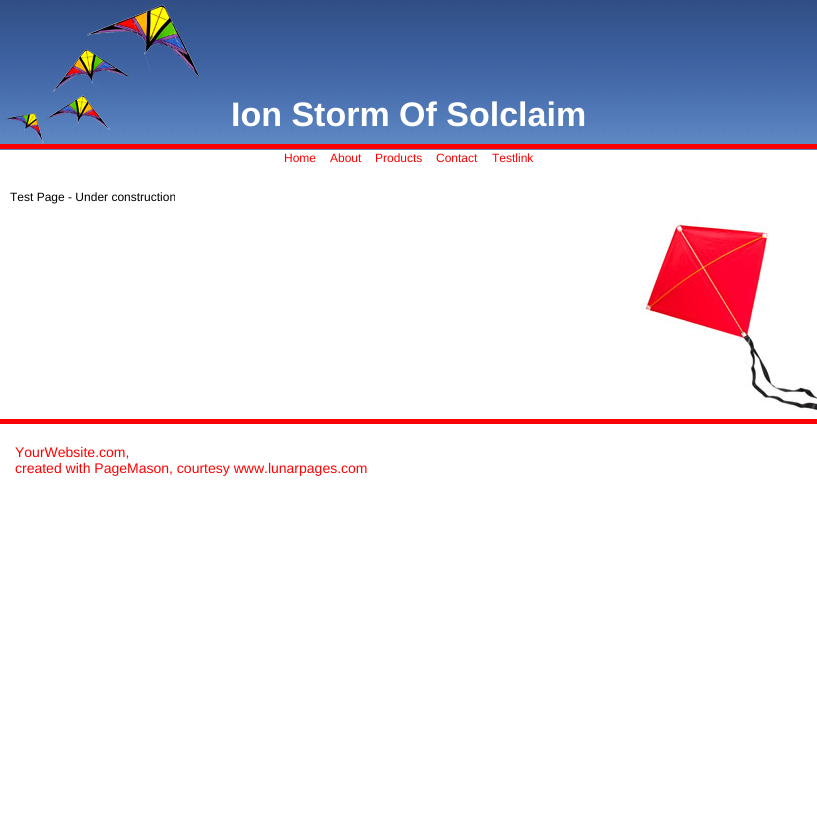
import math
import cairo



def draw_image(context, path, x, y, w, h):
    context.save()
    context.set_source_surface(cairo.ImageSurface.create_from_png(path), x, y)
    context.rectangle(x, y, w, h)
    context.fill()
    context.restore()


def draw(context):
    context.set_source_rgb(1, 1, 1)
    context.paint()
    draw_image(context, "images/1.png", 0, 0, 817, 150)
    draw_image(context, "images/2.png", 5, 4, 195, 140)
    context.set_source_rgb(1, 0, 0)
    context.rectangle(0, 144, 817, 5)
    context.fill()
    draw_image(context, "images/3.png", 641, 219, 176, 192)
    context.rectangle(0, 419, 817, 5)
    context.fill()
    context.select_font_face("Liberation Sans", cairo.FontSlant.NORMAL, cairo.FontWeight.BOLD)
    context.set_font_size(34)
    context.set_source_rgb(1, 1, 1)
    context.move_to(231, 126)
    context.show_text("Ion Storm Of Solclaim")
    context.select_font_face("Liberation Sans")
    context.set_font_size(12)
    context.set_source_rgb(1, 0, 0)
    context.move_to(284, 162)
    context.show_text("Home")
    context.move_to(330, 162)
    context.show_text("About")
    context.move_to(375, 162)
    context.show_text("Products")
    context.move_to(436, 162)
    context.show_text("Contact")
    context.move_to(492, 162)
    context.show_text("Testlink")
    context.set_source_rgb(0, 0, 0)
    context.move_to(10, 201)
    context.show_text("Test Page - Under construction")
    context.set_font_size(14)
    context.set_source_rgb(1, 0, 0)
    context.move_to(15, 457)
    context.show_text("YourWebsite.com,")
    context.move_to(15, 473)
    context.show_text("created with PageMason, courtesy www.lunarpages.com")


surface = cairo.ImageSurface(cairo.Format.RGB24, 817, 816)
context = cairo.Context(surface)
options = cairo.FontOptions()
options.set_hint_metrics(cairo.HintMetrics.OFF)
options.set_hint_style(cairo.HintStyle.NONE)
context.set_font_options(options)
context.set_miter_limit(4)
draw(context)
surface.write_to_png("out.png")
